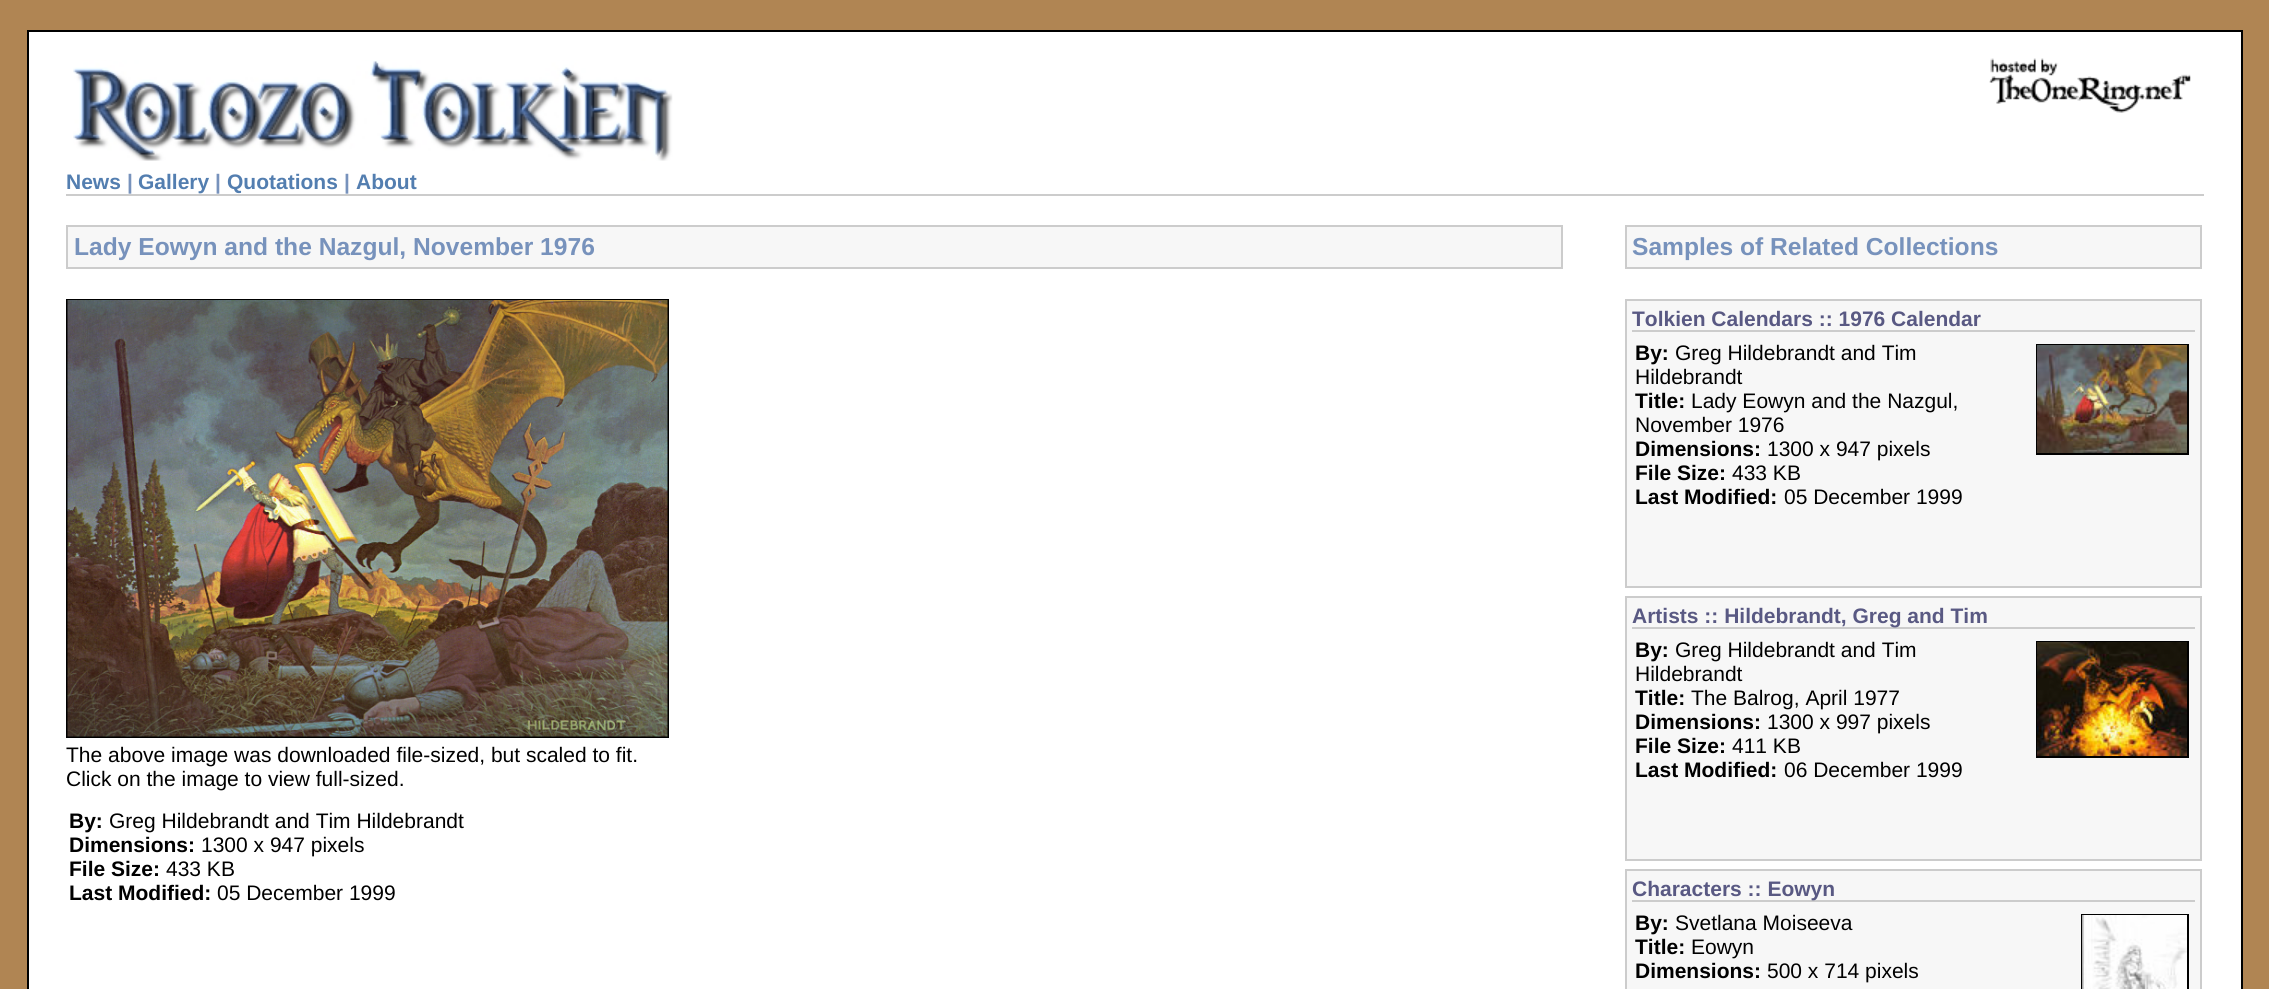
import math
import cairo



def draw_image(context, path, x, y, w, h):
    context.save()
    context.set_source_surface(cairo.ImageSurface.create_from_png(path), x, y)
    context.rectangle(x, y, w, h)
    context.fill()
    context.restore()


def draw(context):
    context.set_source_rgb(176 / 255, 133 / 255, 83 / 255)
    context.paint()
    context.set_source_rgb(1, 1, 1)
    context.rectangle(28, 31, 2214, 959)
    context.fill_preserve()
    context.set_source_rgb(0, 0, 0)
    context.stroke()
    draw_image(context, "images/1.png", 73, 60, 600, 101)
    draw_image(context, "images/2.png", 1989, 58, 202, 55)
    context.set_source_rgb(204 / 255, 204 / 255, 204 / 255)
    context.rectangle(66, 194, 2138, 2)
    context.fill()
    context.set_source_rgb(247 / 255, 247 / 255, 247 / 255)
    context.rectangle(67, 226, 1495, 42)
    context.fill_preserve()
    context.set_source_rgb(204 / 255, 204 / 255, 204 / 255)
    context.stroke()
    context.rectangle(67, 300, 601, 437)
    context.set_source_rgb(0, 0, 0)
    context.stroke()
    draw_image(context, "images/3.png", 67, 300, 601, 437)
    context.set_source_rgb(247 / 255, 247 / 255, 247 / 255)
    context.rectangle(1626, 226, 575, 42)
    context.fill_preserve()
    context.set_source_rgb(204 / 255, 204 / 255, 204 / 255)
    context.stroke()
    context.set_source_rgb(247 / 255, 247 / 255, 247 / 255)
    context.rectangle(1626, 300, 575, 287)
    context.fill_preserve()
    context.set_source_rgb(204 / 255, 204 / 255, 204 / 255)
    context.stroke()
    context.rectangle(1632, 330, 563, 2)
    context.fill()
    context.rectangle(2037, 345, 151, 109)
    context.set_source_rgb(0, 0, 0)
    context.stroke()
    draw_image(context, "images/4.png", 2037, 345, 150, 108)
    context.set_source_rgb(247 / 255, 247 / 255, 247 / 255)
    context.rectangle(1626, 597, 575, 263)
    context.fill_preserve()
    context.set_source_rgb(204 / 255, 204 / 255, 204 / 255)
    context.stroke()
    context.rectangle(1632, 627, 563, 2)
    context.fill()
    context.rectangle(2037, 642, 151, 115)
    context.set_source_rgb(0, 0, 0)
    context.stroke()
    draw_image(context, "images/5.png", 2037, 642, 150, 114)
    context.set_source_rgb(247 / 255, 247 / 255, 247 / 255)
    context.rectangle(1626, 870, 575, 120)
    context.fill_preserve()
    context.set_source_rgb(204 / 255, 204 / 255, 204 / 255)
    context.stroke()
    context.rectangle(1632, 900, 563, 2)
    context.fill()
    context.rectangle(2082, 915, 106, 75)
    context.set_source_rgb(0, 0, 0)
    context.stroke()
    draw_image(context, "images/6.png", 2082, 915, 105, 74)
    context.select_font_face("Liberation Sans", cairo.FontSlant.NORMAL, cairo.FontWeight.BOLD)
    context.set_font_size(21)
    context.set_source_rgb(83 / 255, 126 / 255, 176 / 255)
    context.move_to(66, 189)
    context.show_text("News")
    context.set_source_rgb(119 / 255, 146 / 255, 188 / 255)
    context.move_to(127, 189)
    context.show_text("|")
    context.set_source_rgb(83 / 255, 126 / 255, 176 / 255)
    context.move_to(138, 189)
    context.show_text("Gallery")
    context.set_source_rgb(119 / 255, 146 / 255, 188 / 255)
    context.move_to(215, 189)
    context.show_text("|")
    context.set_source_rgb(83 / 255, 126 / 255, 176 / 255)
    context.move_to(227, 189)
    context.show_text("Quotations")
    context.set_source_rgb(119 / 255, 146 / 255, 188 / 255)
    context.move_to(344, 189)
    context.show_text("|")
    context.set_source_rgb(83 / 255, 126 / 255, 176 / 255)
    context.move_to(356, 189)
    context.show_text("About")
    context.set_font_size(24.6)
    context.set_source_rgb(119 / 255, 146 / 255, 188 / 255)
    context.move_to(74, 255)
    context.show_text("Lady Eowyn and the Nazgul, November 1976")
    context.select_font_face("Liberation Sans")
    context.set_font_size(21)
    context.set_source_rgb(0, 0, 0)
    context.move_to(66, 762)
    context.show_text("The above image was downloaded file-sized, but scaled to fit.")
    context.move_to(66, 786)
    context.show_text("Click on the image to view full-sized.")
    context.select_font_face("Liberation Sans", cairo.FontSlant.NORMAL, cairo.FontWeight.BOLD)
    context.move_to(69, 828)
    context.show_text("By:")
    context.select_font_face("Liberation Sans")
    context.move_to(109, 828)
    context.show_text("Greg Hildebrandt and Tim Hildebrandt")
    context.select_font_face("Liberation Sans", cairo.FontSlant.NORMAL, cairo.FontWeight.BOLD)
    context.move_to(69, 852)
    context.show_text("Dimensions:")
    context.select_font_face("Liberation Sans")
    context.move_to(201, 852)
    context.show_text("1300 x 947 pixels")
    context.select_font_face("Liberation Sans", cairo.FontSlant.NORMAL, cairo.FontWeight.BOLD)
    context.move_to(69, 876)
    context.show_text("File Size:")
    context.select_font_face("Liberation Sans")
    context.move_to(166, 876)
    context.show_text("433 KB")
    context.select_font_face("Liberation Sans", cairo.FontSlant.NORMAL, cairo.FontWeight.BOLD)
    context.move_to(69, 900)
    context.show_text("Last Modified:")
    context.select_font_face("Liberation Sans")
    context.move_to(217, 900)
    context.show_text("05 December 1999")
    context.select_font_face("Liberation Sans", cairo.FontSlant.NORMAL, cairo.FontWeight.BOLD)
    context.set_font_size(24.6)
    context.set_source_rgb(119 / 255, 146 / 255, 188 / 255)
    context.move_to(1632, 255)
    context.show_text("Samples of Related Collections")
    context.set_font_size(21)
    context.set_source_rgb(89 / 255, 89 / 255, 131 / 255)
    context.move_to(1632, 326)
    context.show_text("Tolkien Calendars :: 1976 Calendar")
    context.set_source_rgb(0, 0, 0)
    context.move_to(1635, 360)
    context.show_text("By:")
    context.select_font_face("Liberation Sans")
    context.move_to(1675, 360)
    context.show_text("Greg Hildebrandt and Tim")
    context.move_to(1635, 384)
    context.show_text("Hildebrandt")
    context.select_font_face("Liberation Sans", cairo.FontSlant.NORMAL, cairo.FontWeight.BOLD)
    context.move_to(1635, 408)
    context.show_text("Title:")
    context.select_font_face("Liberation Sans")
    context.move_to(1691, 408)
    context.show_text("Lady Eowyn and the Nazgul,")
    context.move_to(1635, 432)
    context.show_text("November 1976")
    context.select_font_face("Liberation Sans", cairo.FontSlant.NORMAL, cairo.FontWeight.BOLD)
    context.move_to(1635, 456)
    context.show_text("Dimensions:")
    context.select_font_face("Liberation Sans")
    context.move_to(1767, 456)
    context.show_text("1300 x 947 pixels")
    context.select_font_face("Liberation Sans", cairo.FontSlant.NORMAL, cairo.FontWeight.BOLD)
    context.move_to(1635, 480)
    context.show_text("File Size:")
    context.select_font_face("Liberation Sans")
    context.move_to(1732, 480)
    context.show_text("433 KB")
    context.select_font_face("Liberation Sans", cairo.FontSlant.NORMAL, cairo.FontWeight.BOLD)
    context.move_to(1635, 504)
    context.show_text("Last Modified:")
    context.select_font_face("Liberation Sans")
    context.move_to(1784, 504)
    context.show_text("05 December 1999")
    context.select_font_face("Liberation Sans", cairo.FontSlant.NORMAL, cairo.FontWeight.BOLD)
    context.set_source_rgb(89 / 255, 89 / 255, 131 / 255)
    context.move_to(1632, 623)
    context.show_text("Artists :: Hildebrandt, Greg and Tim")
    context.set_source_rgb(0, 0, 0)
    context.move_to(1635, 657)
    context.show_text("By:")
    context.select_font_face("Liberation Sans")
    context.move_to(1675, 657)
    context.show_text("Greg Hildebrandt and Tim")
    context.move_to(1635, 681)
    context.show_text("Hildebrandt")
    context.select_font_face("Liberation Sans", cairo.FontSlant.NORMAL, cairo.FontWeight.BOLD)
    context.move_to(1635, 705)
    context.show_text("Title:")
    context.select_font_face("Liberation Sans")
    context.move_to(1691, 705)
    context.show_text("The Balrog, April 1977")
    context.select_font_face("Liberation Sans", cairo.FontSlant.NORMAL, cairo.FontWeight.BOLD)
    context.move_to(1635, 729)
    context.show_text("Dimensions:")
    context.select_font_face("Liberation Sans")
    context.move_to(1767, 729)
    context.show_text("1300 x 997 pixels")
    context.select_font_face("Liberation Sans", cairo.FontSlant.NORMAL, cairo.FontWeight.BOLD)
    context.move_to(1635, 753)
    context.show_text("File Size:")
    context.select_font_face("Liberation Sans")
    context.move_to(1732, 753)
    context.show_text("411 KB")
    context.select_font_face("Liberation Sans", cairo.FontSlant.NORMAL, cairo.FontWeight.BOLD)
    context.move_to(1635, 777)
    context.show_text("Last Modified:")
    context.select_font_face("Liberation Sans")
    context.move_to(1784, 777)
    context.show_text("06 December 1999")
    context.select_font_face("Liberation Sans", cairo.FontSlant.NORMAL, cairo.FontWeight.BOLD)
    context.set_source_rgb(89 / 255, 89 / 255, 131 / 255)
    context.move_to(1632, 896)
    context.show_text("Characters :: Eowyn")
    context.set_source_rgb(0, 0, 0)
    context.move_to(1635, 930)
    context.show_text("By:")
    context.select_font_face("Liberation Sans")
    context.move_to(1675, 930)
    context.show_text("Svetlana Moiseeva")
    context.select_font_face("Liberation Sans", cairo.FontSlant.NORMAL, cairo.FontWeight.BOLD)
    context.move_to(1635, 954)
    context.show_text("Title:")
    context.select_font_face("Liberation Sans")
    context.move_to(1691, 954)
    context.show_text("Eowyn")
    context.select_font_face("Liberation Sans", cairo.FontSlant.NORMAL, cairo.FontWeight.BOLD)
    context.move_to(1635, 978)
    context.show_text("Dimensions:")
    context.select_font_face("Liberation Sans")
    context.move_to(1767, 978)
    context.show_text("500 x 714 pixels")


surface = cairo.ImageSurface(cairo.Format.RGB24, 2269, 989)
context = cairo.Context(surface)
options = cairo.FontOptions()
options.set_hint_metrics(cairo.HintMetrics.OFF)
options.set_hint_style(cairo.HintStyle.NONE)
context.set_font_options(options)
context.set_miter_limit(4)
draw(context)
surface.write_to_png("out.png")
